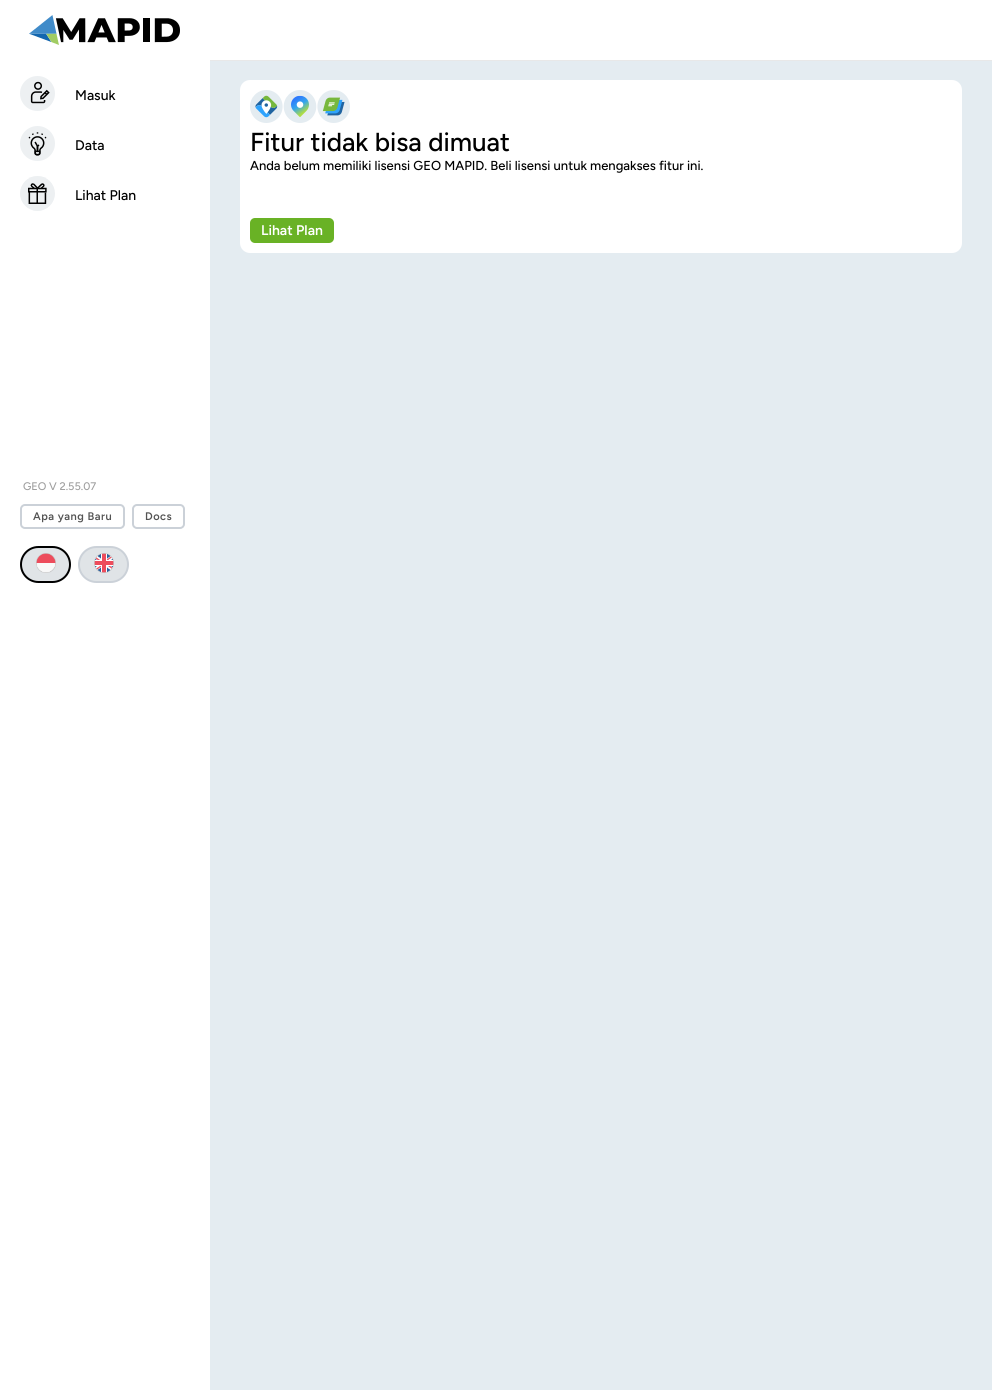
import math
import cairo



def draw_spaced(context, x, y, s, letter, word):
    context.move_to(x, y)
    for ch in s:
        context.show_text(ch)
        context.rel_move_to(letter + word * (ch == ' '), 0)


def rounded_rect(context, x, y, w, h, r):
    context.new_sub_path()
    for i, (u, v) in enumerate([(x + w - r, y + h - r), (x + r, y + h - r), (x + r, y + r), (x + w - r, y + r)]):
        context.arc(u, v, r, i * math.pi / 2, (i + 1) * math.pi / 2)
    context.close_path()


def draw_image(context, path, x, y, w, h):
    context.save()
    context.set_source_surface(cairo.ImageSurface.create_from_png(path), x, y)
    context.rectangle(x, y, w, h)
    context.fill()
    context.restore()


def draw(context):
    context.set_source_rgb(228 / 255, 236 / 255, 241 / 255)
    context.paint()
    context.set_source_rgb(1, 1, 1)
    context.rectangle(0, 0, 992, 60)
    context.fill()
    context.set_source_rgb(232 / 255, 232 / 255, 232 / 255)
    context.rectangle(210, 60, 782, 1)
    context.fill()
    draw_image(context, "images/1.png", 29, 15, 151, 30)
    context.set_source_rgb(1, 1, 1)
    context.rectangle(0, 60, 210, 1330)
    context.fill()
    draw_image(context, "images/2.png", 20, 76, 35, 35)
    draw_image(context, "images/3.png", 20, 126, 35, 35)
    draw_image(context, "images/4.png", 20, 176, 35, 35)
    rounded_rect(context, 21, 505, 103, 23, 4)
    context.set_source_rgb(203 / 255, 209 / 255, 216 / 255)
    context.stroke()
    rounded_rect(context, 133, 505, 51, 23, 4)
    context.stroke()
    context.set_source_rgb(224 / 255, 228 / 255, 231 / 255)
    rounded_rect(context, 21, 547, 49, 35, 17.5)
    context.fill_preserve()
    context.set_source_rgb(0, 0, 0)
    context.stroke()
    draw_image(context, "images/5.png", 36, 553, 20, 20)
    context.set_source_rgb(224 / 255, 228 / 255, 231 / 255)
    rounded_rect(context, 79, 547, 49, 35, 17.5)
    context.fill_preserve()
    context.set_source_rgb(203 / 255, 209 / 255, 216 / 255)
    context.stroke()
    draw_image(context, "images/6.png", 94, 553, 20, 20)
    context.set_source_rgb(1, 1, 1)
    rounded_rect(context, 240, 80, 722, 173, 10)
    context.fill()
    draw_image(context, "images/7.png", 250, 90, 100, 33)
    context.set_source_rgb(105 / 255, 178 / 255, 37 / 255)
    rounded_rect(context, 250, 218, 84, 25, 5)
    context.fill()
    context.select_font_face("Figtree Medium")
    context.set_font_size(14)
    context.set_source_rgb(0, 0, 0)
    context.move_to(75, 100)
    context.show_text("Masuk")
    context.move_to(75, 150)
    context.show_text("Data")
    context.move_to(75, 200)
    context.show_text("Lihat Plan")
    context.set_font_size(11)
    context.set_source_rgb(159 / 255, 159 / 255, 159 / 255)
    context.move_to(23, 490)
    context.show_text("GEO V 2.55.07")
    context.select_font_face("Figtree SemiBold")
    context.set_source_rgb(84 / 255, 84 / 255, 84 / 255)
    draw_spaced(context, 33, 520, "Apa yang Baru", 0.5, 0)
    draw_spaced(context, 145, 520, "Docs", 0.5, 0)
    context.select_font_face("Figtree Medium")
    context.set_font_size(26)
    context.set_source_rgb(0, 0, 0)
    context.move_to(250, 151)
    context.show_text("Fitur tidak bisa dimuat")
    context.set_font_size(13)
    context.move_to(250, 170)
    context.show_text("Anda belum memiliki lisensi GEO MAPID. Beli lisensi untuk mengakses fitur ini.")
    context.select_font_face("Figtree SemiBold")
    context.set_font_size(14)
    context.set_source_rgb(1, 1, 1)
    context.move_to(261, 235)
    context.show_text("Lihat Plan")


surface = cairo.ImageSurface(cairo.Format.RGB24, 992, 1390)
context = cairo.Context(surface)
options = cairo.FontOptions()
options.set_hint_metrics(cairo.HintMetrics.OFF)
options.set_hint_style(cairo.HintStyle.NONE)
context.set_font_options(options)
context.set_miter_limit(4)
draw(context)
surface.write_to_png("out.png")
